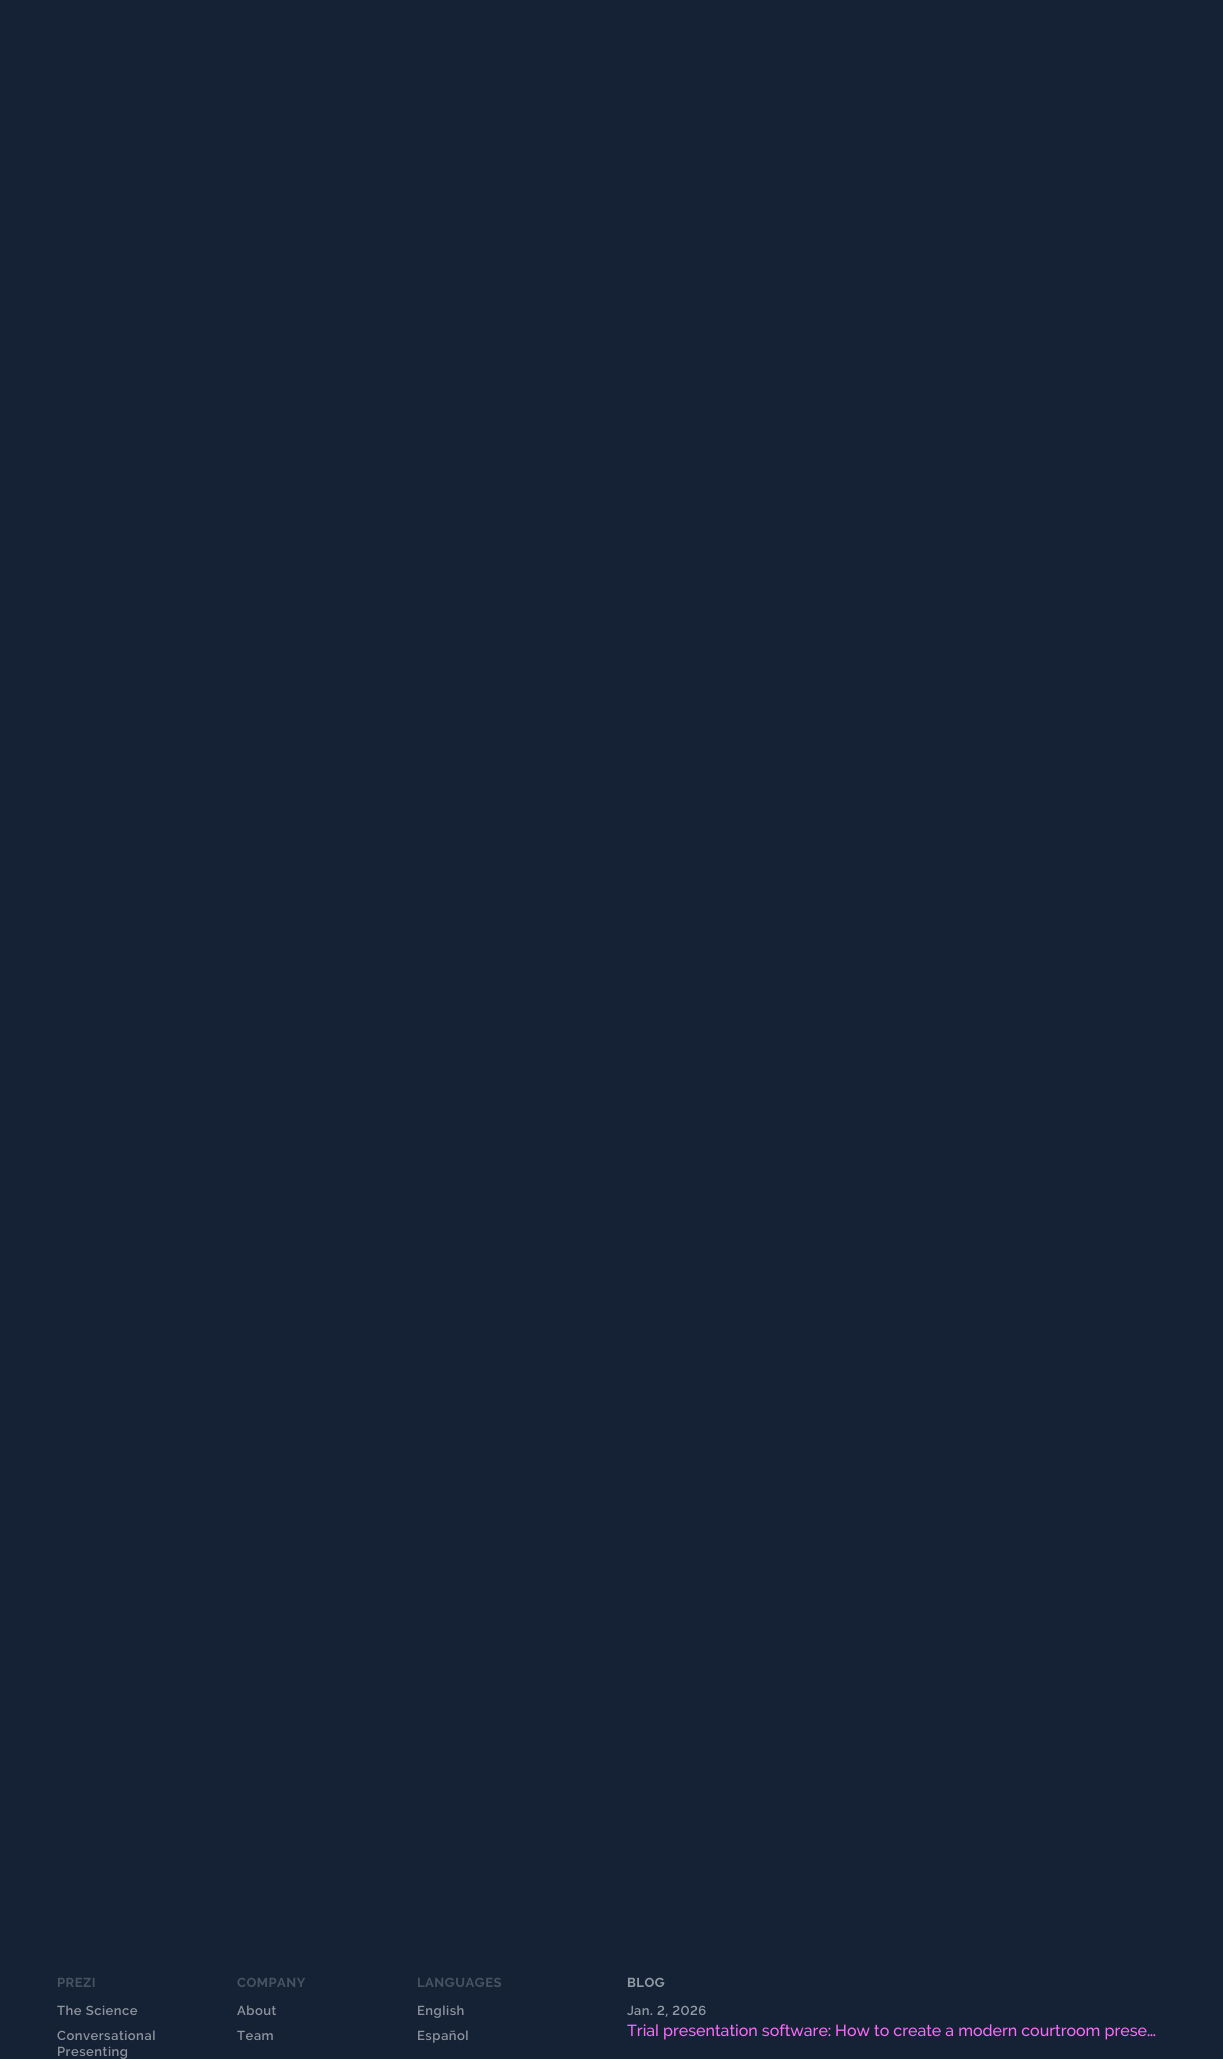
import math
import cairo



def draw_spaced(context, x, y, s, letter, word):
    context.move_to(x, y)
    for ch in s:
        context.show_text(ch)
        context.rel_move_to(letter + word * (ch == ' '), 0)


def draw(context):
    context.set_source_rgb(21 / 255, 34 / 255, 53 / 255)
    context.paint()
    context.select_font_face("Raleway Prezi", cairo.FontSlant.NORMAL, cairo.FontWeight.BOLD)
    context.set_font_size(13)
    context.set_source_rgb(71 / 255, 82 / 255, 98 / 255)
    draw_spaced(context, 57, 1987, "PREZI", 0.5, 0)
    context.select_font_face("Raleway Prezi SemiBold")
    context.set_source_rgb(142 / 255, 147 / 255, 156 / 255)
    draw_spaced(context, 57, 2015, "The Science", 0.5, 0)
    draw_spaced(context, 57, 2040, "Conversational", 0.5, 0)
    draw_spaced(context, 57, 2056, "Presenting", 0.5, 0)
    context.select_font_face("Raleway Prezi", cairo.FontSlant.NORMAL, cairo.FontWeight.BOLD)
    context.set_source_rgb(71 / 255, 82 / 255, 98 / 255)
    draw_spaced(context, 237, 1987, "COMPANY", 0.5, 0)
    context.select_font_face("Raleway Prezi SemiBold")
    context.set_source_rgb(142 / 255, 147 / 255, 156 / 255)
    draw_spaced(context, 237, 2015, "About", 0.5, 0)
    draw_spaced(context, 237, 2040, "Team", 0.5, 0)
    context.select_font_face("Raleway Prezi", cairo.FontSlant.NORMAL, cairo.FontWeight.BOLD)
    context.set_source_rgb(71 / 255, 82 / 255, 98 / 255)
    draw_spaced(context, 417, 1987, "LANGUAGES", 0.5, 0)
    context.select_font_face("Raleway Prezi SemiBold")
    context.set_source_rgb(142 / 255, 147 / 255, 156 / 255)
    draw_spaced(context, 417, 2015, "English", 0.5, 0)
    draw_spaced(context, 417, 2040, "Español", 0.5, 0)
    context.select_font_face("Raleway Prezi", cairo.FontSlant.NORMAL, cairo.FontWeight.BOLD)
    context.set_source_rgb(146 / 255, 154 / 255, 163 / 255)
    draw_spaced(context, 627, 1987, "BLOG", 0.5, 0)
    context.select_font_face("Raleway Prezi SemiBold")
    draw_spaced(context, 627, 2015, "Jan. 2, 2026", 0.5, 0)
    context.select_font_face("Raleway Prezi Medium")
    context.set_font_size(16)
    context.set_source_rgb(253 / 255, 106 / 255, 250 / 255)
    context.move_to(627, 2036)
    context.show_text("Trial presentation software: How to create a modern courtroom prese…")


surface = cairo.ImageSurface(cairo.Format.RGB24, 1223, 2059)
context = cairo.Context(surface)
options = cairo.FontOptions()
options.set_hint_metrics(cairo.HintMetrics.OFF)
options.set_hint_style(cairo.HintStyle.NONE)
context.set_font_options(options)
context.set_miter_limit(4)
draw(context)
surface.write_to_png("out.png")
